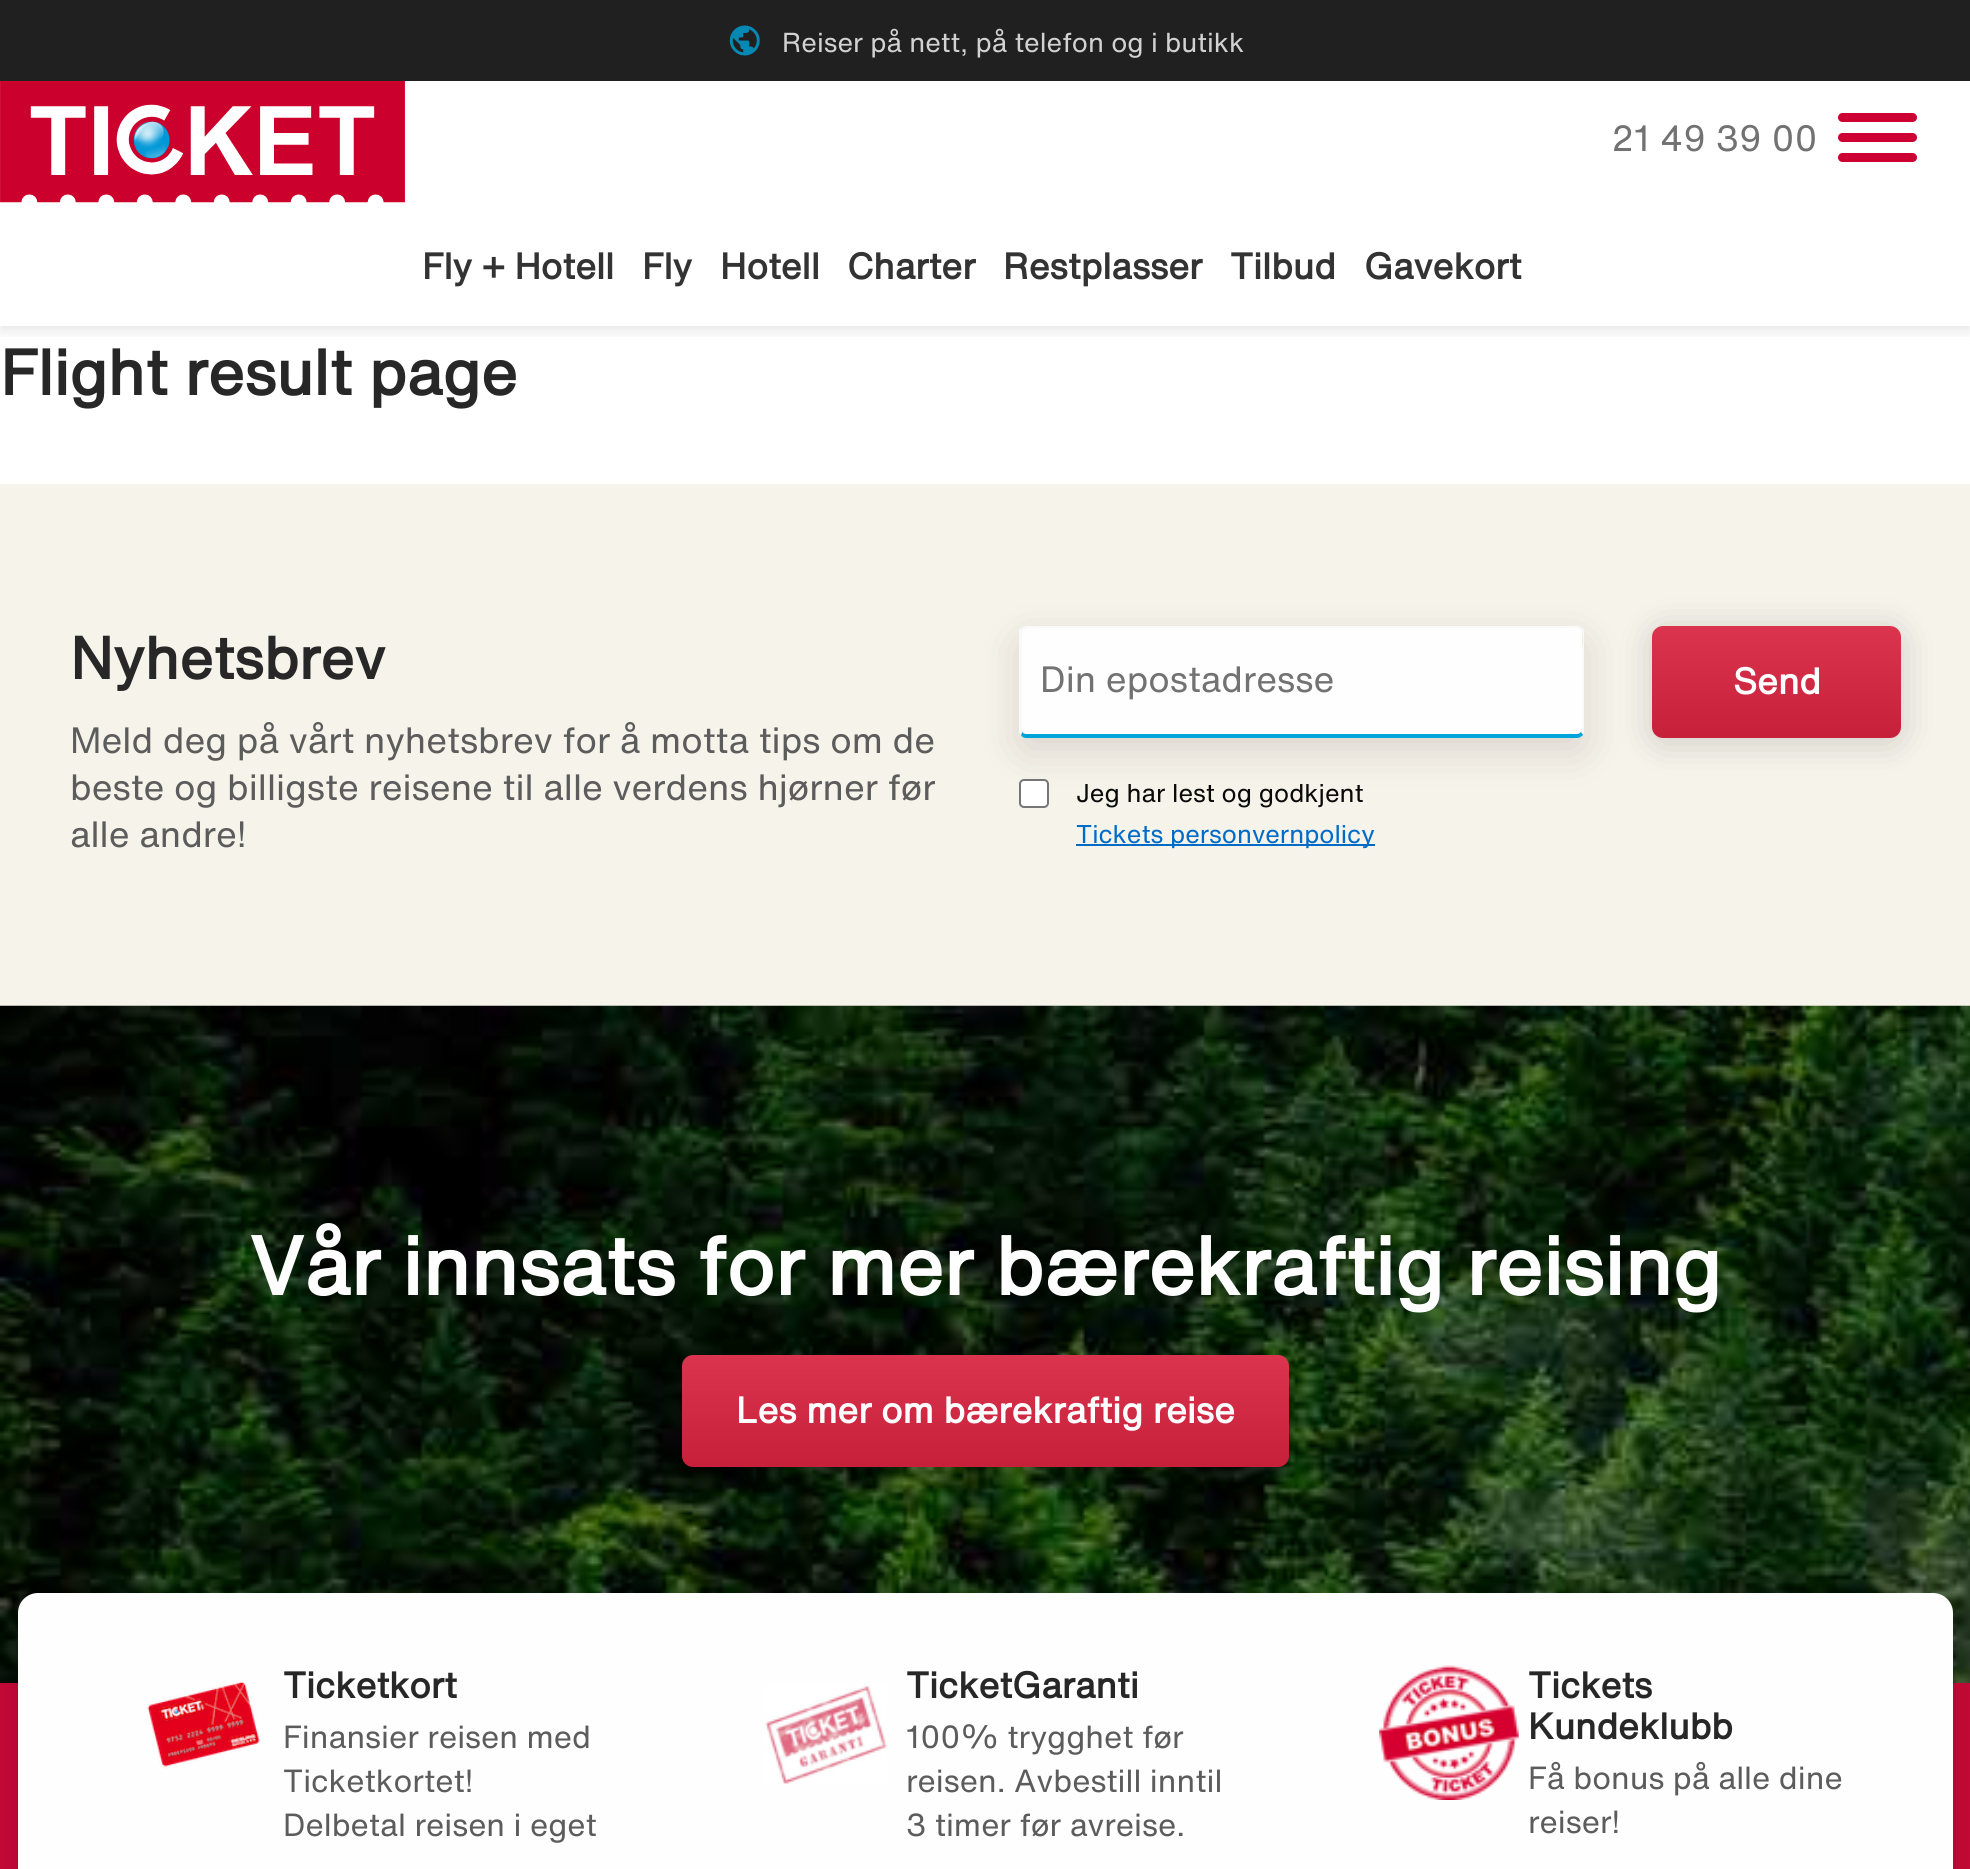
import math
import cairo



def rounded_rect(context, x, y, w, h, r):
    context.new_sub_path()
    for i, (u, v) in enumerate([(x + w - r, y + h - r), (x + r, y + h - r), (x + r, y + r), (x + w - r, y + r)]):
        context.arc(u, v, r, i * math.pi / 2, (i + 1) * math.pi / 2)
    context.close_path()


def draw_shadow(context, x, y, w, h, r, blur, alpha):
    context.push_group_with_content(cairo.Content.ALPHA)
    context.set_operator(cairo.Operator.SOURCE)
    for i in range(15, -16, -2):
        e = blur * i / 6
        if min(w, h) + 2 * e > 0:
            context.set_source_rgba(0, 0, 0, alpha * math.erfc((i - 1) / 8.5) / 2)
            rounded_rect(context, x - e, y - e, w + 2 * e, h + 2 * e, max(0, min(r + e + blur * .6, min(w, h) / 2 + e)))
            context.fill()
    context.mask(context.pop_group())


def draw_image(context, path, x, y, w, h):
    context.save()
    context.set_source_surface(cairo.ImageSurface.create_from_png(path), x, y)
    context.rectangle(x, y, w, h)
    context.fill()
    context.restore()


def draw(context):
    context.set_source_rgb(1, 1, 1)
    context.paint()
    context.save()
    context.rectangle(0, 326, 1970, 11)
    context.clip()
    context.set_source_rgb(0, 0, 0)
    draw_shadow(context, 0, 86, 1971, 245, 0, 7, 0.1)
    context.restore()
    context.set_source_rgb(32 / 255, 32 / 255, 32 / 255)
    context.rectangle(0, 0, 1970, 81)
    context.fill()
    draw_image(context, "images/1.png", 729, 25, 31, 31)
    draw_image(context, "images/2.png", 0, 81, 405, 122)
    context.set_source_rgb(204 / 255, 0, 51 / 255)
    rounded_rect(context, 1838, 113, 79, 9, 4.5)
    context.fill()
    rounded_rect(context, 1838, 133, 79, 9, 4.5)
    context.fill()
    rounded_rect(context, 1838, 153, 79, 9, 4.5)
    context.fill()
    context.set_source_rgb(196 / 255, 8 / 255, 54 / 255)
    context.rectangle(0, 1683, 1970, 186)
    context.fill()
    context.set_source_rgb(245 / 255, 243 / 255, 234 / 255)
    context.rectangle(0, 484, 1970, 522)
    context.fill()
    context.set_source_rgb(46 / 255, 2 / 255, 9 / 255)
    draw_shadow(context, 1024, 644, 556, 103, 2, 22.5, 0.15)
    context.set_source_rgb(254 / 255, 254 / 255, 254 / 255)
    context.new_path()
    context.move_to(1026, 628)
    context.line_to(1577, 628)
    context.curve_to(1580, 628, 1582, 630, 1582, 632)
    context.line_to(1582, 731)
    context.curve_to(1582, 732, 1580, 734, 1577, 734)
    context.line_to(1026, 734)
    context.curve_to(1024, 734, 1022, 732, 1022, 731)
    context.line_to(1022, 632)
    context.curve_to(1022, 630, 1024, 628, 1026, 628)
    context.close_path()
    context.fill()
    context.set_source_rgb(249 / 255, 249 / 255, 249 / 255)
    context.new_path()
    context.move_to(1026, 626)
    context.curve_to(1024, 626, 1023, 627, 1021, 628)
    context.line_to(1023, 629)
    context.line_to(1026, 628)
    context.line_to(1577, 628)
    context.line_to(1580, 629)
    context.line_to(1582, 628)
    context.curve_to(1581, 627, 1579, 626, 1577, 626)
    context.close_path()
    context.fill()
    context.new_path()
    context.move_to(1582, 628)
    context.curve_to(1583, 629, 1584, 630, 1584, 632)
    context.line_to(1584, 731)
    context.curve_to(1584, 733, 1583, 734, 1583, 735)
    context.line_to(1581, 732)
    context.line_to(1582, 731)
    context.line_to(1582, 648)
    context.curve_to(1582, 648, 1585, 632, 1580, 629)
    context.close_path()
    context.fill()
    context.set_source_rgb(0, 163 / 255, 218 / 255)
    context.new_path()
    context.move_to(1026, 738)
    context.line_to(1577, 738)
    context.curve_to(1579, 738, 1581, 737, 1583, 735)
    context.line_to(1581, 732)
    context.curve_to(1580, 733, 1579, 734, 1577, 734)
    context.line_to(1026, 734)
    context.curve_to(1024, 734, 1023, 733, 1022, 732)
    context.line_to(1021, 735)
    context.curve_to(1022, 737, 1024, 738, 1026, 738)
    context.close_path()
    context.fill()
    context.set_source_rgb(249 / 255, 249 / 255, 249 / 255)
    context.new_path()
    context.move_to(1019, 630)
    context.line_to(1021, 628)
    context.line_to(1023, 629)
    context.line_to(1022, 632)
    context.line_to(1022, 732)
    context.line_to(1021, 735)
    context.line_to(1019, 733)
    context.close_path()
    context.fill()
    context.set_source_rgb(1, 1, 1)
    rounded_rect(context, 1020, 780, 28, 27, 4)
    context.fill_preserve()
    context.set_source_rgb(118 / 255, 118 / 255, 118 / 255)
    context.stroke()
    context.set_source_rgb(0, 107 / 255, 199 / 255)
    context.rectangle(1076, 844, 299, 2)
    context.fill()
    context.set_source_rgb(0, 0, 0)
    draw_shadow(context, 1652, 630, 249, 113, 11, 18, 0.16)
    gradient = cairo.LinearGradient(1776, 626, 1776, 738)
    gradient.add_color_stop_rgba(0, 219 / 255, 52 / 255, 78 / 255, 1)
    gradient.add_color_stop_rgba(0.98, 199 / 255, 32 / 255, 59 / 255, 1)
    context.set_source(gradient)
    rounded_rect(context, 1652, 626, 249, 112, 11)
    context.fill()
    draw_image(context, "images/3.png", 0, 1005, 1970, 678)
    context.set_source_rgb(0, 0, 0)
    draw_shadow(context, 682, 1359, 607, 113, 11, 18, 0.16)
    gradient = cairo.LinearGradient(986, 1355, 986, 1467)
    gradient.add_color_stop_rgba(0, 219 / 255, 52 / 255, 78 / 255, 1)
    gradient.add_color_stop_rgba(0.98, 199 / 255, 32 / 255, 59 / 255, 1)
    context.set_source(gradient)
    rounded_rect(context, 682, 1355, 607, 112, 11)
    context.fill()
    context.set_source_rgb(0, 0, 0)
    draw_shadow(context, 18, 1598, 1935, 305, 20, 4.5, 0.09)
    draw_shadow(context, 18, 1598, 1935, 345, 20, 18, 0.08)
    context.set_source_rgb(254 / 255, 254 / 255, 254 / 255)
    rounded_rect(context, 18, 1593, 1935, 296, 20)
    context.fill()
    draw_image(context, "images/4.png", 147, 1681, 113, 88)
    draw_image(context, "images/5.png", 765, 1685, 122, 100)
    draw_image(context, "images/6.png", 1379, 1665, 140, 135)
    context.select_font_face("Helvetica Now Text")
    context.set_font_size(27)
    context.set_source_rgb(210 / 255, 210 / 255, 210 / 255)
    context.move_to(782, 52)
    context.show_text("Reiser på nett, på telefon og i butikk")
    context.set_font_size(36)
    context.set_source_rgb(114 / 255, 114 / 255, 114 / 255)
    context.move_to(1611, 151)
    context.show_text("21 49 39 00")
    context.select_font_face("Helvetica Now Text", cairo.FontSlant.NORMAL, cairo.FontWeight.BOLD)
    context.set_source_rgb(51 / 255, 51 / 255, 51 / 255)
    context.move_to(422, 279)
    context.show_text("Fly + Hotell")
    context.move_to(642, 279)
    context.show_text("Fly")
    context.move_to(720, 279)
    context.show_text("Hotell")
    context.move_to(847, 279)
    context.show_text("Charter")
    context.move_to(1003, 279)
    context.show_text("Restplasser")
    context.move_to(1230, 279)
    context.show_text("Tilbud")
    context.move_to(1364, 279)
    context.show_text("Gavekort")
    context.set_font_size(63)
    context.set_source_rgb(39 / 255, 39 / 255, 39 / 255)
    context.move_to(0, 395)
    context.show_text("Flight result page")
    context.set_font_size(58.5)
    context.move_to(70, 679)
    context.show_text("Nyhetsbrev")
    context.select_font_face("Helvetica Now Text")
    context.set_font_size(36)
    context.set_source_rgb(92 / 255, 92 / 255, 92 / 255)
    context.move_to(70, 753)
    context.show_text("Meld deg på vårt nyhetsbrev for å motta tips om de")
    context.move_to(70, 800)
    context.show_text("beste og billigste reisene til alle verdens hjørner før")
    context.move_to(70, 847)
    context.show_text("alle andre!")
    context.set_source_rgb(114 / 255, 114 / 255, 114 / 255)
    context.move_to(1040, 692)
    context.show_text("Din epostadresse")
    context.set_font_size(25.25)
    context.set_source_rgb(10 / 255, 10 / 255, 10 / 255)
    context.move_to(1076, 802)
    context.show_text("Jeg har lest og godkjent")
    context.set_source_rgb(0, 107 / 255, 199 / 255)
    context.move_to(1076, 843)
    context.show_text("Tickets personvernpolicy")
    context.select_font_face("Helvetica Now Text", cairo.FontSlant.NORMAL, cairo.FontWeight.BOLD)
    context.set_font_size(36)
    context.set_source_rgb(254 / 255, 254 / 255, 254 / 255)
    context.move_to(1733, 694)
    context.show_text("Send")
    context.set_font_size(81)
    context.move_to(249, 1295)
    context.show_text("Vår innsats for mer bærekraftig reising")
    context.set_font_size(36)
    context.move_to(736, 1423)
    context.show_text("Les mer om bærekraftig reise")
    context.set_source_rgb(39 / 255, 39 / 255, 39 / 255)
    context.move_to(283, 1698)
    context.show_text("Ticketkort")
    context.select_font_face("Helvetica Now Text")
    context.set_font_size(31.5)
    context.set_source_rgb(92 / 255, 92 / 255, 92 / 255)
    context.move_to(283, 1748)
    context.show_text("Finansier reisen med")
    context.move_to(283, 1792)
    context.show_text("Ticketkortet!")
    context.move_to(283, 1836)
    context.show_text("Delbetal reisen i eget")
    context.select_font_face("Helvetica Now Text", cairo.FontSlant.NORMAL, cairo.FontWeight.BOLD)
    context.set_font_size(36)
    context.set_source_rgb(39 / 255, 39 / 255, 39 / 255)
    context.move_to(906, 1698)
    context.show_text("TicketGaranti")
    context.select_font_face("Helvetica Now Text")
    context.set_font_size(31.5)
    context.set_source_rgb(92 / 255, 92 / 255, 92 / 255)
    context.move_to(906, 1748)
    context.show_text("100% trygghet før")
    context.move_to(906, 1792)
    context.show_text("reisen. Avbestill inntil")
    context.move_to(906, 1836)
    context.show_text("3 timer før avreise.")
    context.select_font_face("Helvetica Now Text", cairo.FontSlant.NORMAL, cairo.FontWeight.BOLD)
    context.set_font_size(36)
    context.set_source_rgb(39 / 255, 39 / 255, 39 / 255)
    context.move_to(1528, 1698)
    context.show_text("Tickets")
    context.move_to(1528, 1739)
    context.show_text("Kundeklubb")
    context.select_font_face("Helvetica Now Text")
    context.set_font_size(31.5)
    context.set_source_rgb(92 / 255, 92 / 255, 92 / 255)
    context.move_to(1528, 1789)
    context.show_text("Få bonus på alle dine")
    context.move_to(1528, 1833)
    context.show_text("reiser!")


surface = cairo.ImageSurface(cairo.Format.RGB24, 1970, 1869)
context = cairo.Context(surface)
options = cairo.FontOptions()
options.set_hint_metrics(cairo.HintMetrics.OFF)
options.set_hint_style(cairo.HintStyle.NONE)
context.set_font_options(options)
context.set_miter_limit(4)
draw(context)
surface.write_to_png("out.png")
